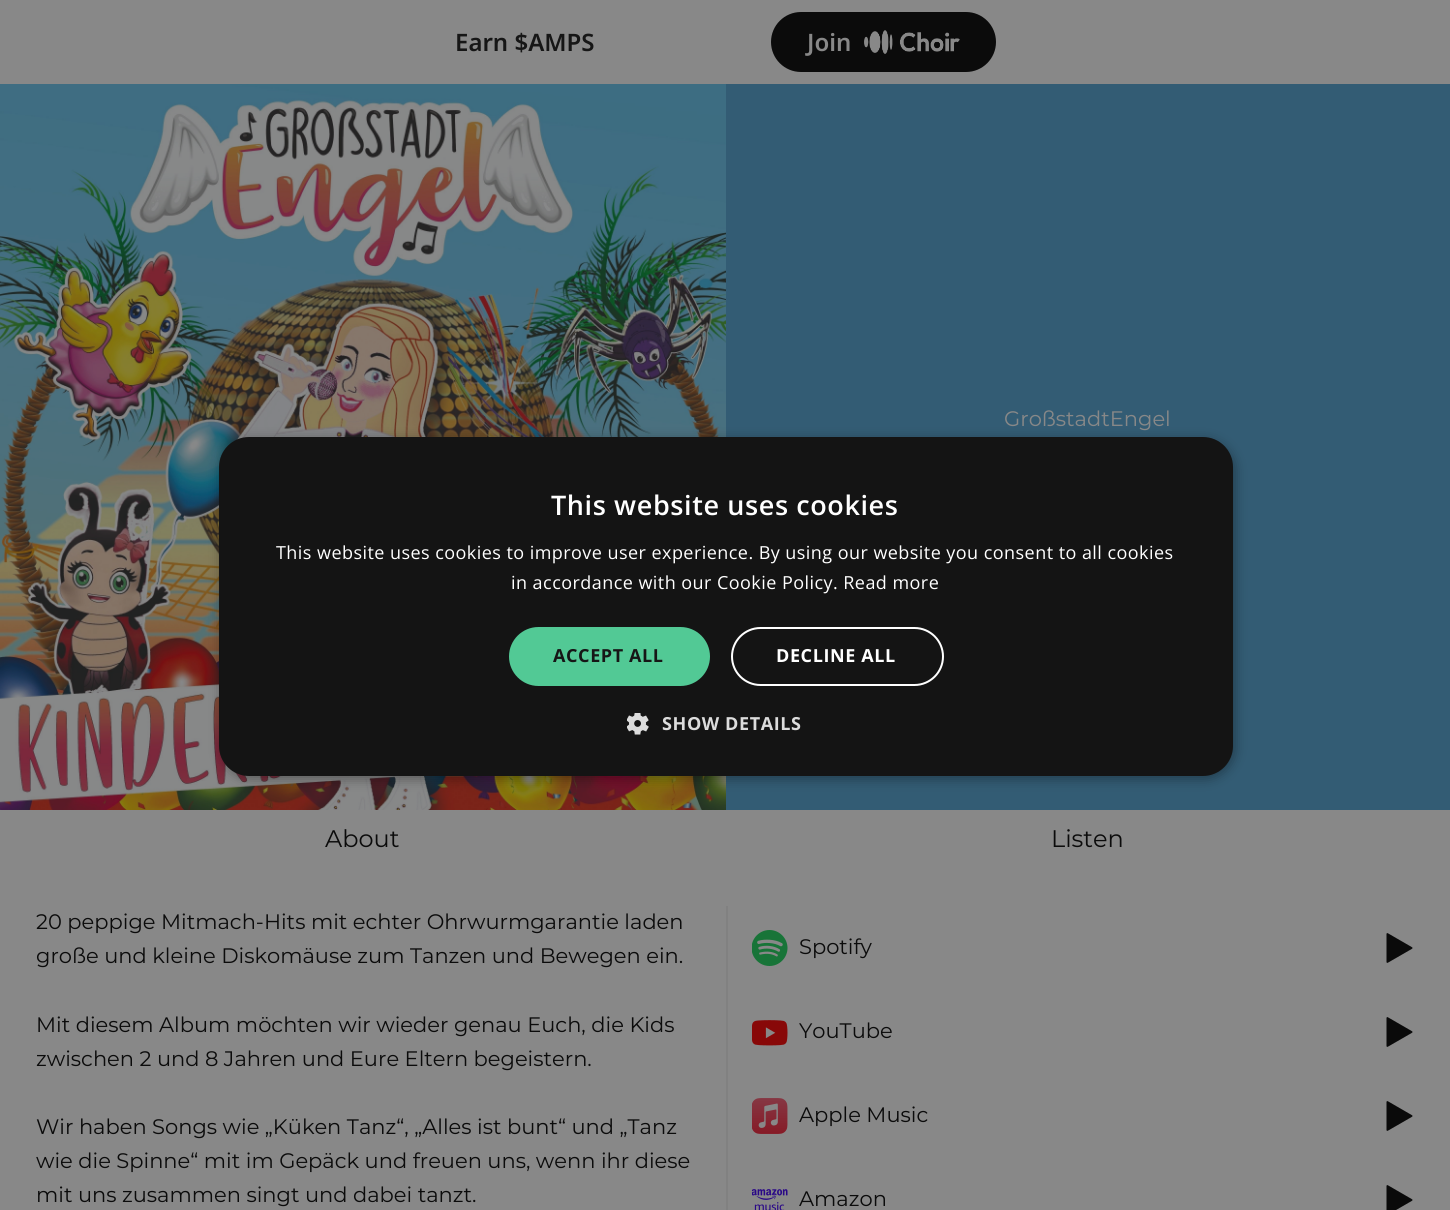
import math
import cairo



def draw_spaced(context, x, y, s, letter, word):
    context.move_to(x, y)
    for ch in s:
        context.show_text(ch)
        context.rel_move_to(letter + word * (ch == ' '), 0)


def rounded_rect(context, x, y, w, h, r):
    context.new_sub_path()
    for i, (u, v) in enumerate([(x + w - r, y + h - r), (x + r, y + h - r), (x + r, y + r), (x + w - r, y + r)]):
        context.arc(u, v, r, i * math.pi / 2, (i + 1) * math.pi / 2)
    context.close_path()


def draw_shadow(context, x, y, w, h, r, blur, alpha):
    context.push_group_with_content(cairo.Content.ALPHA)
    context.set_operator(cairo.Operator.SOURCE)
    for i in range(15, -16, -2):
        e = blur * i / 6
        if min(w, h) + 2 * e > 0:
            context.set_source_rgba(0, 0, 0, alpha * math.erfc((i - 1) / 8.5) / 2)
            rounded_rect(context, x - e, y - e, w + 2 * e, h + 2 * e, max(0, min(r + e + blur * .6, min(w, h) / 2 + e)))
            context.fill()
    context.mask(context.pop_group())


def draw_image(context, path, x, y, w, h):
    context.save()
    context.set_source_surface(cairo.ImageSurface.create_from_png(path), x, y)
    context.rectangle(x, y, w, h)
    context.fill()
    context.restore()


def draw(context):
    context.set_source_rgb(136 / 255, 136 / 255, 136 / 255)
    context.paint()
    context.set_source_rgb(11 / 255, 11 / 255, 11 / 255)
    rounded_rect(context, 771, 12, 225, 60, 30)
    context.fill()
    draw_image(context, "images/1.png", 864, 30, 96, 24)
    draw_image(context, "images/2.png", 0, 84, 726, 726)
    context.set_source_rgb(51 / 255, 92 / 255, 116 / 255)
    context.rectangle(726, 84, 724, 726)
    context.fill()
    context.set_source_rgb(129 / 255, 129 / 255, 129 / 255)
    context.rectangle(726, 906, 2, 304)
    context.fill()
    draw_image(context, "images/3.png", 752, 930, 36, 36)
    draw_image(context, "images/4.png", 1386, 933, 27, 30)
    draw_image(context, "images/5.png", 752, 1020, 36, 26)
    draw_image(context, "images/4.png", 1386, 1017, 27, 30)
    draw_image(context, "images/6.png", 752, 1098, 36, 36)
    draw_image(context, "images/4.png", 1386, 1101, 27, 30)
    draw_image(context, "images/7.png", 752, 1189, 36, 21)
    draw_image(context, "images/8.png", 1386, 1185, 27, 25)
    context.set_source_rgb(0, 0, 0)
    draw_shadow(context, 221, 440, 1014, 339, 30, 6, 0.35)
    context.set_source_rgb(20 / 255, 20 / 255, 20 / 255)
    rounded_rect(context, 219, 437, 1014, 339, 30)
    context.fill()
    context.set_source_rgb(82 / 255, 201 / 255, 149 / 255)
    rounded_rect(context, 509, 627, 201, 59, 29.5)
    context.fill()
    rounded_rect(context, 732, 628, 211, 57, 28.5)
    context.set_source_rgb(1, 1, 1)
    context.stroke()
    draw_image(context, "images/9.png", 627, 713, 22, 22)
    context.select_font_face("Noto Sans SemiBold")
    context.set_font_size(24)
    context.set_source_rgb(22 / 255, 22 / 255, 22 / 255)
    context.move_to(455, 51)
    context.show_text("Earn $AMPS")
    context.set_source_rgb(136 / 255, 136 / 255, 136 / 255)
    context.move_to(807, 51)
    context.show_text("Join")
    context.select_font_face("Montserrat")
    context.set_font_size(21)
    context.move_to(1004, 426)
    context.show_text("GroßstadtEngel")
    context.set_font_size(24)
    context.set_source_rgb(11 / 255, 11 / 255, 11 / 255)
    context.move_to(325, 847)
    context.show_text("About")
    context.move_to(1051, 847)
    context.show_text("Listen")
    context.set_font_size(21)
    context.move_to(36, 929)
    context.show_text("20 peppige Mitmach-Hits mit echter Ohrwurmgarantie laden")
    context.move_to(36, 963)
    context.show_text("große und kleine Diskomäuse zum Tanzen und Bewegen ein.")
    context.move_to(36, 1032)
    context.show_text("Mit diesem Album möchten wir wieder genau Euch, die Kids")
    context.move_to(36, 1066)
    context.show_text("zwischen 2 und 8 Jahren und Eure Eltern begeistern.")
    context.move_to(36, 1134)
    context.show_text("Wir haben Songs wie „Küken Tanz“, „Alles ist bunt“ und „Tanz")
    context.move_to(36, 1168)
    context.show_text("wie die Spinne“ mit im Gepäck und freuen uns, wenn ihr diese")
    context.move_to(36, 1202)
    context.show_text("mit uns zusammen singt und dabei tanzt.")
    context.move_to(799, 954)
    context.show_text("Spotify")
    context.move_to(799, 1038)
    context.show_text("YouTube")
    context.move_to(799, 1122)
    context.show_text("Apple Music")
    context.move_to(799, 1206)
    context.show_text("Amazon")
    context.select_font_face("Open Sans SemiBold")
    context.set_font_size(27)
    context.set_source_rgb(1, 1, 1)
    draw_spaced(context, 551, 515, "This website uses cookies", 0.6, 0)
    context.select_font_face("Open Sans")
    context.set_font_size(18)
    draw_spaced(context, 276, 559, "This website uses cookies to improve user experience. By using our website you consent to all cookies", 0.45, 0)
    draw_spaced(context, 511, 589, "in accordance with our Cookie Policy. Read more", 0.45, 0)
    context.select_font_face("Open Sans", cairo.FontSlant.NORMAL, cairo.FontWeight.BOLD)
    context.set_source_rgb(22 / 255, 22 / 255, 22 / 255)
    draw_spaced(context, 553, 662, "ACCEPT ALL", 0.6, 0)
    context.set_source_rgb(1, 1, 1)
    draw_spaced(context, 776, 662, "DECLINE ALL", 0.6, 0)
    context.set_source_rgb(220 / 255, 220 / 255, 220 / 255)
    draw_spaced(context, 662, 730, "SHOW DETAILS", 0.6, 0)


surface = cairo.ImageSurface(cairo.Format.RGB24, 1450, 1210)
context = cairo.Context(surface)
options = cairo.FontOptions()
options.set_hint_metrics(cairo.HintMetrics.OFF)
options.set_hint_style(cairo.HintStyle.NONE)
context.set_font_options(options)
context.set_miter_limit(4)
draw(context)
surface.write_to_png("out.png")
